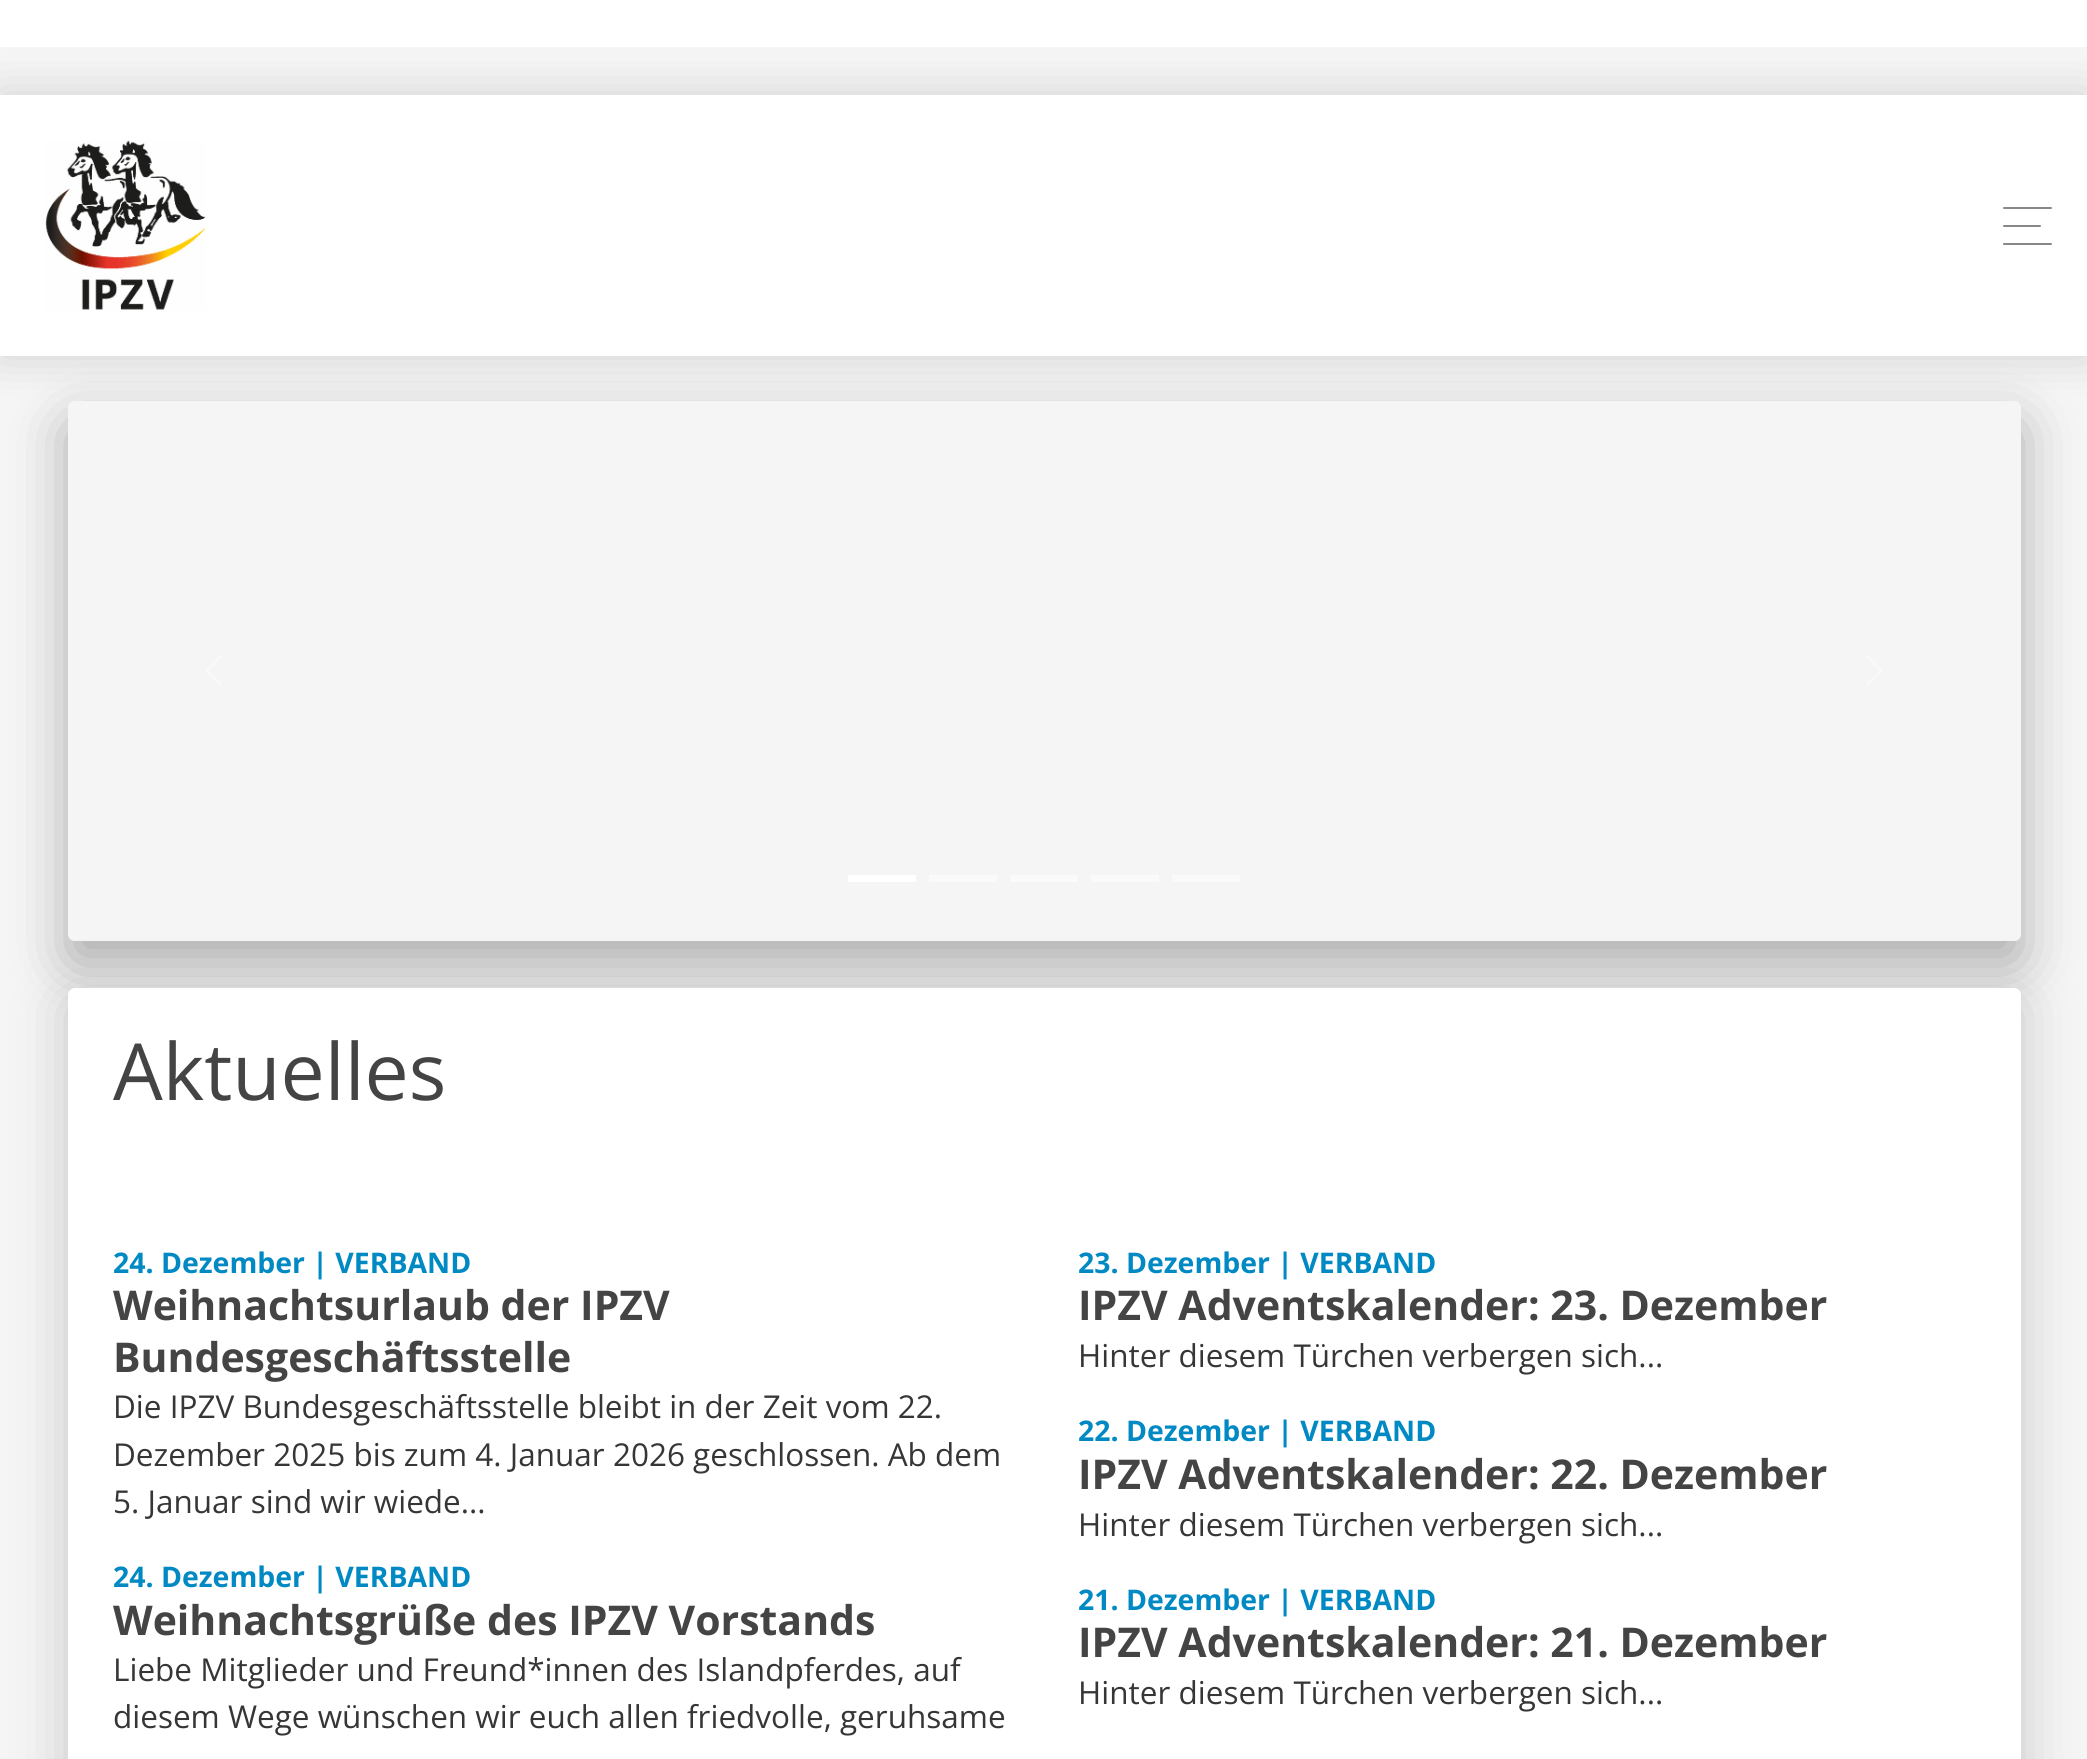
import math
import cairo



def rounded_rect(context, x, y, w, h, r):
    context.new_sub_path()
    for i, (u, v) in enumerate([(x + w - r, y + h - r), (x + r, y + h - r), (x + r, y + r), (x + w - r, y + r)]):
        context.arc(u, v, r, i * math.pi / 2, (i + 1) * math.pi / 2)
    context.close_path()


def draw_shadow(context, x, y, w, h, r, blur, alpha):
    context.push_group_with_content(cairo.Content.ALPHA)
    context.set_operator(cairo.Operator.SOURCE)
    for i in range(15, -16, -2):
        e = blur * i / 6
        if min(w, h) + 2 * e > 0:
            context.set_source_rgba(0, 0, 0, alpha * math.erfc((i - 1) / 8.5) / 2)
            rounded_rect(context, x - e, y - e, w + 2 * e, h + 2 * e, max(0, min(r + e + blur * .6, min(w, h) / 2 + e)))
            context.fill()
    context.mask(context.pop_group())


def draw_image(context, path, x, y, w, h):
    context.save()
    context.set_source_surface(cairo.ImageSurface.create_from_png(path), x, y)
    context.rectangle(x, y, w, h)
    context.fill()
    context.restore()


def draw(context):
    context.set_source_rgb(245 / 255, 245 / 255, 245 / 255)
    context.paint()
    context.set_source_rgb(1, 1, 1)
    context.rectangle(0, 0, 2087, 47)
    context.fill()
    context.set_source_rgb(0, 0, 0)
    draw_shadow(context, 0, 95, 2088, 261, 0, 22.5, 0.15)
    context.save()
    context.set_fill_rule(cairo.FillRule.EVEN_ODD)
    context.new_path()
    context.move_to(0, 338)
    context.line_to(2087, 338)
    context.line_to(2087, 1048)
    context.line_to(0, 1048)
    context.close_path()
    context.move_to(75, 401)
    context.line_to(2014, 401)
    context.curve_to(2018, 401, 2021, 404, 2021, 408)
    context.line_to(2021, 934)
    context.curve_to(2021, 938, 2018, 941, 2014, 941)
    context.line_to(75, 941)
    context.curve_to(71, 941, 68, 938, 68, 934)
    context.line_to(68, 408)
    context.curve_to(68, 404, 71, 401, 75, 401)
    context.close_path()
    context.clip()
    draw_shadow(context, 68, 423, 1953, 540, 7, 28, 0.3)
    context.restore()
    context.set_source_rgb(1, 1, 1)
    context.rectangle(0, 95, 2087, 261)
    context.fill()
    draw_image(context, "images/1.png", 45, 140, 161, 170)
    context.set_source_rgb(136 / 255, 136 / 255, 136 / 255)
    rounded_rect(context, 2003, 207, 49, 2, 1)
    context.fill()
    rounded_rect(context, 2003, 225, 38, 2, 1)
    context.fill()
    rounded_rect(context, 2003, 243, 49, 2, 1)
    context.fill()
    context.set_source_rgb(250 / 255, 250 / 255, 250 / 255)
    context.new_path()
    context.move_to(213, 663)
    context.line_to(205.5, 670.5)
    context.line_to(220.5, 685.5)
    context.line_to(222, 684.5)
    context.line_to(208.5, 670.5)
    context.line_to(222, 656.5)
    context.curve_to(221.5, 656, 221, 655, 220, 656)
    context.close_path()
    context.fill()
    context.new_path()
    context.move_to(1866.5, 656)
    context.line_to(1866, 656.5)
    context.line_to(1879.5, 670.5)
    context.line_to(1866, 684.5)
    context.line_to(1867.5, 685.5)
    context.line_to(1882, 670.5)
    context.curve_to(1882.5, 670, 1869, 656.5, 1867.5, 655.5)
    context.close_path()
    context.fill()
    context.set_source_rgb(1, 1, 1)
    context.rectangle(848, 875, 68, 7)
    context.fill()
    context.set_source_rgb(250 / 255, 250 / 255, 250 / 255)
    context.rectangle(929, 875, 68, 7)
    context.fill()
    context.rectangle(1010, 875, 68, 7)
    context.fill()
    context.rectangle(1091, 875, 68, 7)
    context.fill()
    context.rectangle(1172, 875, 68, 7)
    context.fill()
    context.set_source_rgb(0, 0, 0)
    draw_shadow(context, 68, 999, 1953, 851, 7, 28, 0.2)
    context.set_source_rgb(1, 1, 1)
    rounded_rect(context, 68, 988, 1953, 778, 7)
    context.fill()
    context.select_font_face("Open Sans")
    context.set_font_size(78.75)
    context.set_source_rgb(68 / 255, 68 / 255, 68 / 255)
    context.move_to(113, 1100)
    context.show_text("Aktuelles")
    context.select_font_face("Open Sans", cairo.FontSlant.NORMAL, cairo.FontWeight.BOLD)
    context.set_font_size(28.4)
    context.set_source_rgb(0, 137 / 255, 195 / 255)
    context.move_to(113, 1273)
    context.show_text("24. Dezember | VERBAND")
    context.set_font_size(41)
    context.set_source_rgb(68 / 255, 68 / 255, 68 / 255)
    context.move_to(113, 1320)
    context.show_text("Weihnachtsurlaub der IPZV")
    context.move_to(113, 1372)
    context.show_text("Bundesgeschäftsstelle")
    context.select_font_face("Open Sans")
    context.set_font_size(31.5)
    context.set_source_rgb(54 / 255, 54 / 255, 54 / 255)
    context.move_to(113, 1418)
    context.show_text("Die IPZV Bundesgeschäftsstelle bleibt in der Zeit vom 22.")
    context.move_to(113, 1466)
    context.show_text("Dezember 2025 bis zum 4. Januar 2026 geschlossen. Ab dem")
    context.move_to(113, 1513)
    context.show_text("5. Januar sind wir wiede...")
    context.select_font_face("Open Sans", cairo.FontSlant.NORMAL, cairo.FontWeight.BOLD)
    context.set_font_size(28.4)
    context.set_source_rgb(0, 137 / 255, 195 / 255)
    context.move_to(113, 1587)
    context.show_text("24. Dezember | VERBAND")
    context.set_font_size(41)
    context.set_source_rgb(68 / 255, 68 / 255, 68 / 255)
    context.move_to(113, 1635)
    context.show_text("Weihnachtsgrüße des IPZV Vorstands")
    context.select_font_face("Open Sans")
    context.set_font_size(31.5)
    context.set_source_rgb(54 / 255, 54 / 255, 54 / 255)
    context.move_to(113, 1681)
    context.show_text("Liebe Mitglieder und Freund*innen des Islandpferdes, auf")
    context.move_to(113, 1728)
    context.show_text("diesem Wege wünschen wir euch allen friedvolle, geruhsame")
    context.select_font_face("Open Sans", cairo.FontSlant.NORMAL, cairo.FontWeight.BOLD)
    context.set_font_size(28.4)
    context.set_source_rgb(0, 137 / 255, 195 / 255)
    context.move_to(1078, 1273)
    context.show_text("23. Dezember | VERBAND")
    context.set_font_size(41)
    context.set_source_rgb(68 / 255, 68 / 255, 68 / 255)
    context.move_to(1078, 1320)
    context.show_text("IPZV Adventskalender: 23. Dezember")
    context.select_font_face("Open Sans")
    context.set_font_size(31.5)
    context.set_source_rgb(54 / 255, 54 / 255, 54 / 255)
    context.move_to(1078, 1367)
    context.show_text("Hinter diesem Türchen verbergen sich...")
    context.select_font_face("Open Sans", cairo.FontSlant.NORMAL, cairo.FontWeight.BOLD)
    context.set_font_size(28.4)
    context.set_source_rgb(0, 137 / 255, 195 / 255)
    context.move_to(1078, 1441)
    context.show_text("22. Dezember | VERBAND")
    context.set_font_size(41)
    context.set_source_rgb(68 / 255, 68 / 255, 68 / 255)
    context.move_to(1078, 1489)
    context.show_text("IPZV Adventskalender: 22. Dezember")
    context.select_font_face("Open Sans")
    context.set_font_size(31.5)
    context.set_source_rgb(54 / 255, 54 / 255, 54 / 255)
    context.move_to(1078, 1536)
    context.show_text("Hinter diesem Türchen verbergen sich...")
    context.select_font_face("Open Sans", cairo.FontSlant.NORMAL, cairo.FontWeight.BOLD)
    context.set_font_size(28.4)
    context.set_source_rgb(0, 137 / 255, 195 / 255)
    context.move_to(1078, 1610)
    context.show_text("21. Dezember | VERBAND")
    context.set_font_size(41)
    context.set_source_rgb(68 / 255, 68 / 255, 68 / 255)
    context.move_to(1078, 1657)
    context.show_text("IPZV Adventskalender: 21. Dezember")
    context.select_font_face("Open Sans")
    context.set_font_size(31.5)
    context.set_source_rgb(54 / 255, 54 / 255, 54 / 255)
    context.move_to(1078, 1704)
    context.show_text("Hinter diesem Türchen verbergen sich...")


surface = cairo.ImageSurface(cairo.Format.RGB24, 2087, 1759)
context = cairo.Context(surface)
options = cairo.FontOptions()
options.set_hint_metrics(cairo.HintMetrics.OFF)
options.set_hint_style(cairo.HintStyle.NONE)
context.set_font_options(options)
context.set_miter_limit(4)
draw(context)
surface.write_to_png("out.png")
